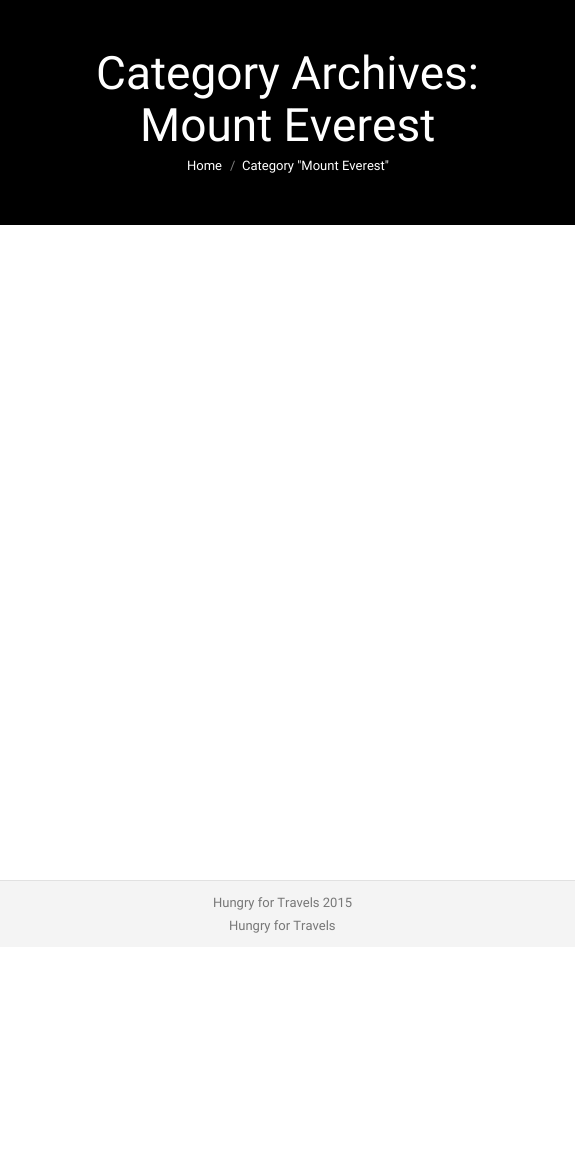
import math
import cairo



def draw(context):
    context.set_source_rgb(1, 1, 1)
    context.paint()
    context.set_source_rgb(0, 0, 0)
    context.rectangle(0, 0, 575, 225)
    context.fill()
    context.set_source_rgb(244 / 255, 244 / 255, 244 / 255)
    context.rectangle(0, 881, 575, 66)
    context.fill()
    context.set_source_rgb(225 / 255, 225 / 255, 225 / 255)
    context.rectangle(0, 880, 575, 1)
    context.fill()
    context.select_font_face("Roboto")
    context.set_font_size(46)
    context.set_source_rgb(1, 1, 1)
    context.move_to(96, 89)
    context.show_text("Category Archives:")
    context.move_to(140, 141)
    context.show_text("Mount Everest")
    context.set_font_size(13)
    context.move_to(187, 170)
    context.show_text("Home")
    context.set_source_rgb(128 / 255, 128 / 255, 128 / 255)
    context.move_to(230, 170)
    context.show_text("/")
    context.set_source_rgb(1, 1, 1)
    context.move_to(242, 170)
    context.show_text("Category \"Mount Everest\"")
    context.set_source_rgb(119 / 255, 119 / 255, 119 / 255)
    context.move_to(213, 907)
    context.show_text("Hungry for Travels 2015")
    context.move_to(229, 930)
    context.show_text("Hungry for Travels")


surface = cairo.ImageSurface(cairo.Format.RGB24, 575, 1176)
context = cairo.Context(surface)
options = cairo.FontOptions()
options.set_hint_metrics(cairo.HintMetrics.OFF)
options.set_hint_style(cairo.HintStyle.NONE)
context.set_font_options(options)
context.set_miter_limit(4)
draw(context)
surface.write_to_png("out.png")
